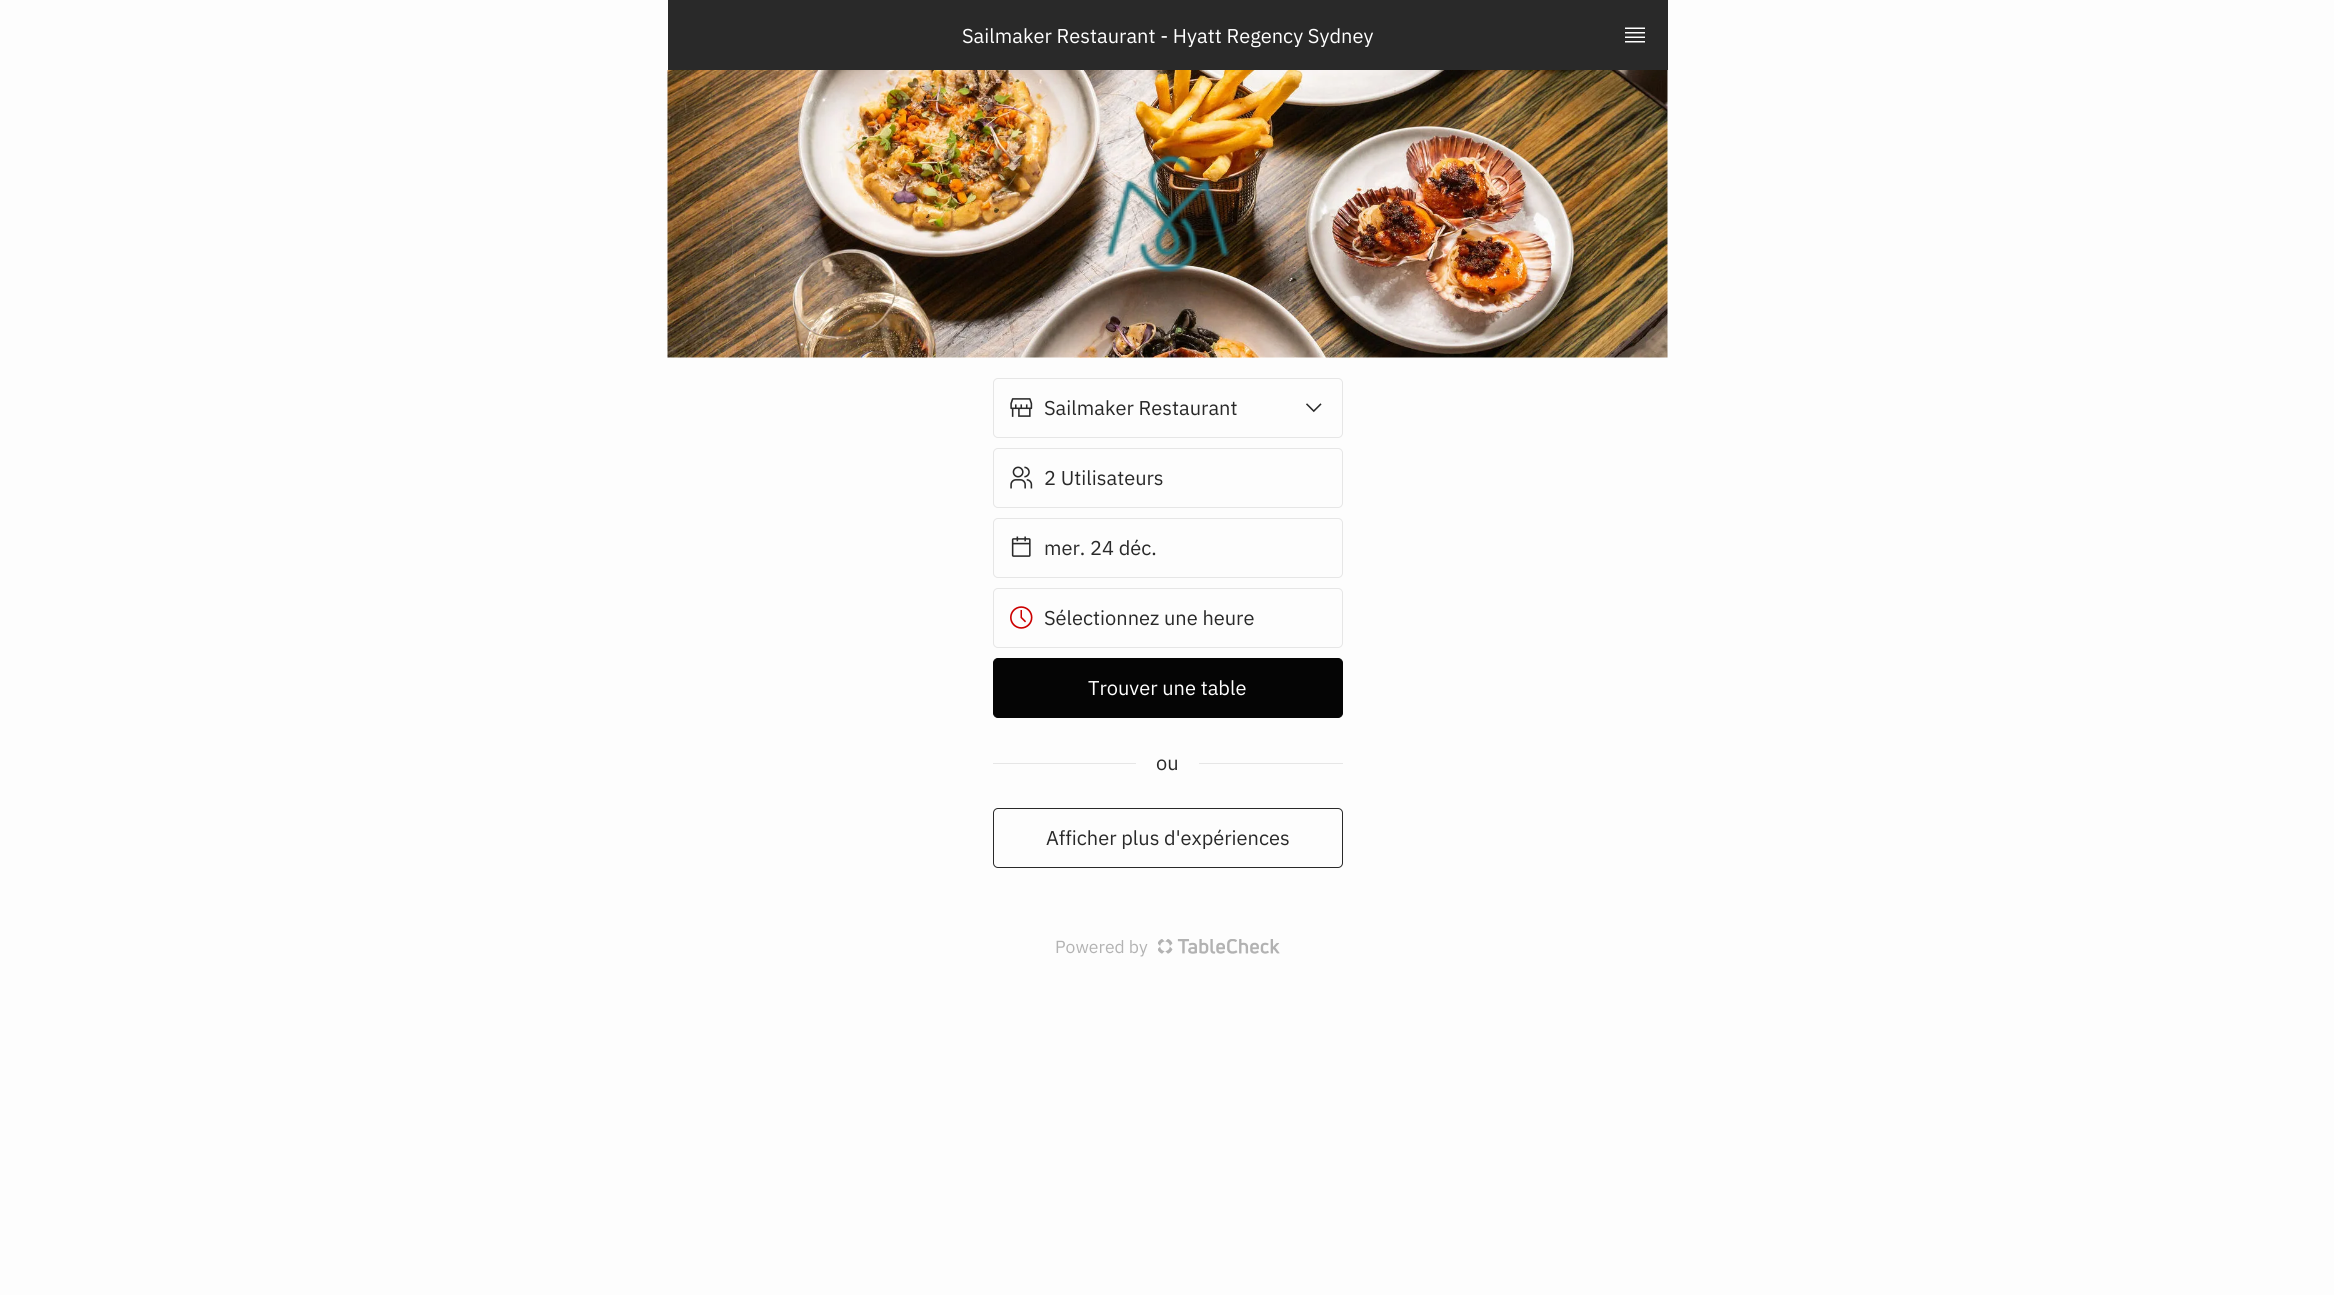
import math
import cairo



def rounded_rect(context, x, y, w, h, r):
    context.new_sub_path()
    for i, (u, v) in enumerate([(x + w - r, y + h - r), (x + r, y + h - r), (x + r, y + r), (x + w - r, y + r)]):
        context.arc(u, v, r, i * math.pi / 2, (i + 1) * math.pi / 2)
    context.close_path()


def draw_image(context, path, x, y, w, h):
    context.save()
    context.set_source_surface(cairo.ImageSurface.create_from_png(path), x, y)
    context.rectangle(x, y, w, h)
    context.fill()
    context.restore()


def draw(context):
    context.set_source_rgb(253 / 255, 253 / 255, 253 / 255)
    context.paint()
    context.set_source_rgb(41 / 255, 41 / 255, 41 / 255)
    context.rectangle(668, 0, 1000, 70)
    context.fill()
    draw_image(context, "images/1.png", 1625, 27, 20, 16)
    draw_image(context, "images/2.png", 667, 70, 1001, 288)
    draw_image(context, "images/3.png", 1105, 154, 125, 120)
    rounded_rect(context, 993.5, 378.5, 349, 59, 4.5)
    context.set_source_rgb(230 / 255, 230 / 255, 230 / 255)
    context.set_line_width(1)
    context.stroke()
    draw_image(context, "images/4.png", 1010, 398, 23, 19)
    draw_image(context, "images/5.png", 1306, 403, 16, 10)
    rounded_rect(context, 993.5, 448.5, 349, 59, 4.5)
    context.stroke()
    draw_image(context, "images/6.png", 1010, 466, 23, 23)
    rounded_rect(context, 993.5, 518.5, 349, 59, 4.5)
    context.stroke()
    draw_image(context, "images/7.png", 1011, 536, 20, 21)
    rounded_rect(context, 993.5, 588.5, 349, 59, 4.5)
    context.stroke()
    draw_image(context, "images/8.png", 1010, 606, 23, 23)
    context.set_source_rgb(5 / 255, 5 / 255, 5 / 255)
    rounded_rect(context, 993.5, 658.5, 349, 59, 4.5)
    context.fill_preserve()
    context.stroke()
    context.set_source_rgb(230 / 255, 230 / 255, 230 / 255)
    context.rectangle(993, 763, 143, 1)
    context.fill()
    context.rectangle(1199, 763, 144, 1)
    context.fill()
    rounded_rect(context, 993.5, 808.5, 349, 59, 4.5)
    context.set_source_rgb(41 / 255, 41 / 255, 41 / 255)
    context.stroke()
    draw_image(context, "images/9.png", 1158, 939, 122, 15)
    context.select_font_face("IBM Plex Sans")
    context.set_font_size(20)
    context.set_source_rgb(1, 1, 1)
    context.move_to(962, 43)
    context.show_text("Sailmaker Restaurant - Hyatt Regency Sydney")
    context.set_source_rgb(41 / 255, 41 / 255, 41 / 255)
    context.move_to(1044, 415)
    context.show_text("Sailmaker Restaurant")
    context.move_to(1044, 485)
    context.show_text("2 Utilisateurs")
    context.move_to(1044, 555)
    context.show_text("mer. 24 déc.")
    context.move_to(1044, 625)
    context.show_text("Sélectionnez une heure")
    context.set_source_rgb(1, 1, 1)
    context.move_to(1088, 695)
    context.show_text("Trouver une table")
    context.set_source_rgb(41 / 255, 41 / 255, 41 / 255)
    context.move_to(1156, 770)
    context.show_text("ou")
    context.move_to(1046, 845)
    context.show_text("Afficher plus d'expériences")
    context.set_font_size(17.5)
    context.set_source_rgb(179 / 255, 179 / 255, 179 / 255)
    context.move_to(1055, 953)
    context.show_text("Powered by")


surface = cairo.ImageSurface(cairo.Format.RGB24, 2334, 1295)
context = cairo.Context(surface)
options = cairo.FontOptions()
options.set_hint_metrics(cairo.HintMetrics.OFF)
options.set_hint_style(cairo.HintStyle.NONE)
context.set_font_options(options)
context.set_miter_limit(4)
draw(context)
surface.write_to_png("out.png")
